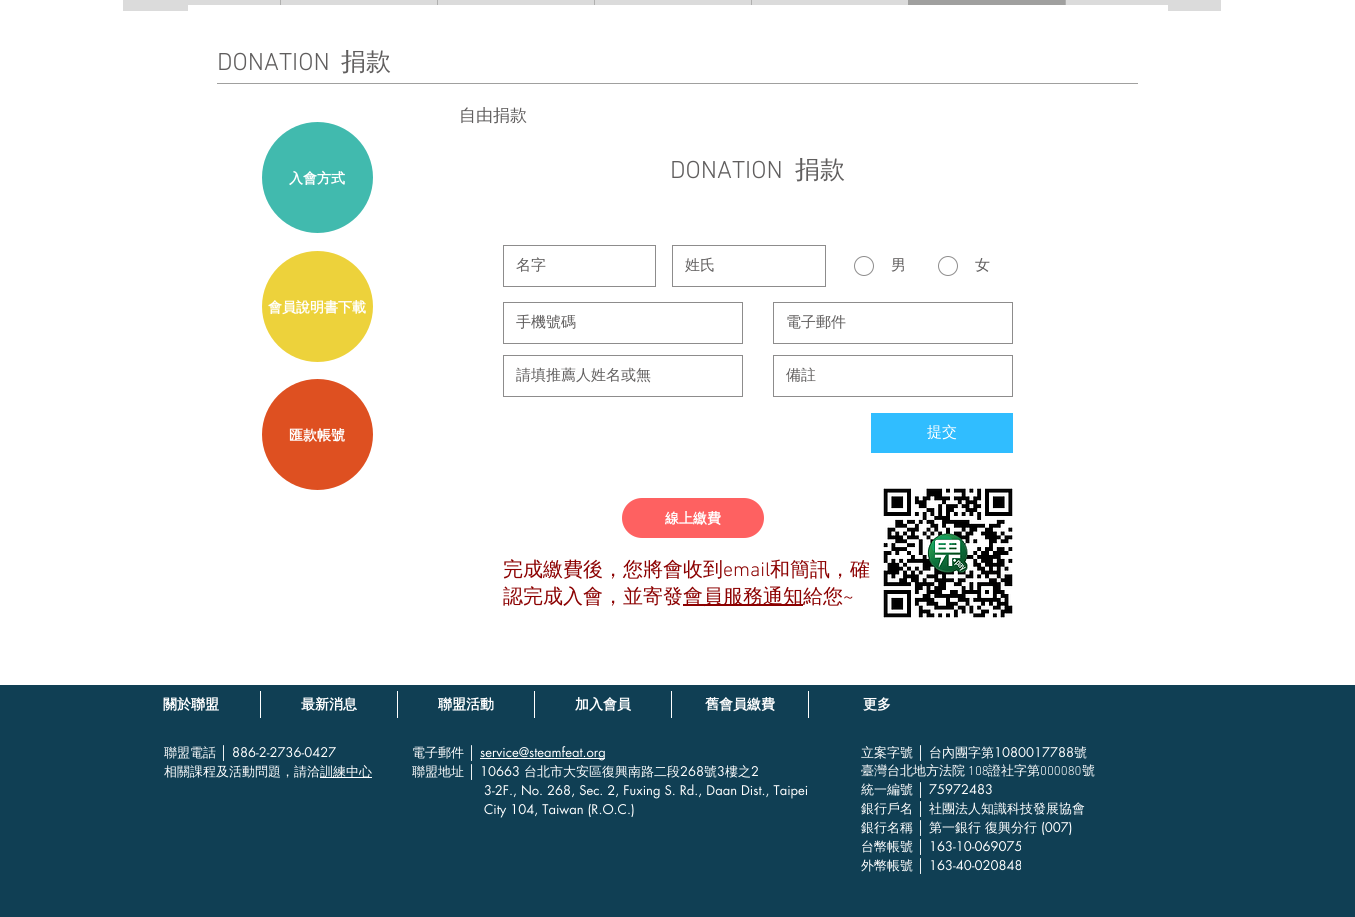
import math
import cairo



def rounded_rect(context, x, y, w, h, r):
    context.new_sub_path()
    for i, (u, v) in enumerate([(x + w - r, y + h - r), (x + r, y + h - r), (x + r, y + r), (x + w - r, y + r)]):
        context.arc(u, v, r, i * math.pi / 2, (i + 1) * math.pi / 2)
    context.close_path()


def draw_image(context, path, x, y, w, h):
    context.save()
    context.set_source_surface(cairo.ImageSurface.create_from_png(path), x, y)
    context.rectangle(x, y, w, h)
    context.fill()
    context.restore()


def draw(context):
    context.set_source_rgb(1, 1, 1)
    context.paint()
    context.set_source_rgb(219 / 255, 219 / 255, 219 / 255)
    context.rectangle(123, 0, 1098, 11)
    context.fill()
    context.set_source_rgb(176 / 255, 176 / 255, 175 / 255)
    context.rectangle(280, 0, 1, 11)
    context.fill()
    context.rectangle(437, 0, 1, 11)
    context.fill()
    context.rectangle(594, 0, 1, 11)
    context.fill()
    context.rectangle(751, 0, 1, 11)
    context.fill()
    context.set_source_rgb(160 / 255, 160 / 255, 159 / 255)
    context.rectangle(908, 0, 157, 5)
    context.fill()
    context.set_source_rgb(176 / 255, 176 / 255, 175 / 255)
    context.rectangle(1065, 0, 1, 11)
    context.fill()
    context.set_source_rgb(1, 1, 1)
    context.rectangle(188, 5, 980, 6)
    context.fill()
    context.set_source_rgb(160 / 255, 160 / 255, 159 / 255)
    context.rectangle(217, 83, 921, 1)
    context.fill()
    context.set_source_rgb(65 / 255, 186 / 255, 174 / 255)
    context.arc(317.5, 177.5, 55.5, 0, 2 * math.pi)
    context.fill()
    context.rectangle(503.5, 245.5, 152, 41)
    context.set_source_rgb(141 / 255, 140 / 255, 140 / 255)
    context.set_line_width(1)
    context.stroke()
    context.rectangle(672.5, 245.5, 153, 41)
    context.stroke()
    context.arc(864, 266, 9.5, 0, 2 * math.pi)
    context.stroke()
    context.arc(948, 266, 9.5, 0, 2 * math.pi)
    context.stroke()
    context.rectangle(503.5, 302.5, 239, 41)
    context.stroke()
    context.rectangle(773.5, 302.5, 239, 41)
    context.stroke()
    context.rectangle(503.5, 355.5, 239, 41)
    context.stroke()
    context.rectangle(773.5, 355.5, 239, 41)
    context.stroke()
    context.set_source_rgb(48 / 255, 189 / 255, 1)
    context.rectangle(871, 413, 142, 40)
    context.fill()
    context.set_source_rgb(237 / 255, 210 / 255, 59 / 255)
    context.arc(317.5, 306.5, 55.5, 0, 2 * math.pi)
    context.fill()
    context.set_source_rgb(222 / 255, 80 / 255, 33 / 255)
    context.arc(317.5, 434.5, 55.5, 0, 2 * math.pi)
    context.fill()
    context.set_source_rgb(254 / 255, 97 / 255, 97 / 255)
    rounded_rect(context, 622, 498, 142, 40, 20)
    context.fill()
    draw_image(context, "images/1.png", 883, 488, 130, 130)
    context.set_source_rgb(139 / 255, 0, 0)
    context.rectangle(683, 604, 120, 2)
    context.fill()
    context.set_source_rgb(16 / 255, 63 / 255, 84 / 255)
    context.rectangle(0, 685, 1355, 232)
    context.fill()
    context.set_source_rgb(1, 1, 1)
    context.rectangle(260, 691, 1, 27)
    context.fill()
    context.rectangle(397, 691, 1, 27)
    context.fill()
    context.rectangle(534, 691, 1, 27)
    context.fill()
    context.rectangle(671, 691, 1, 27)
    context.fill()
    context.rectangle(808, 691, 1, 27)
    context.fill()
    context.rectangle(320, 777, 52, 1)
    context.fill()
    context.rectangle(480, 758, 125, 1)
    context.fill()
    context.select_font_face("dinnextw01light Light")
    context.set_font_size(25)
    context.set_source_rgb(96 / 255, 94 / 255, 94 / 255)
    context.move_to(217, 70)
    context.show_text("DONATION")
    context.select_font_face("WenQuanYi Zen Hei Medium")
    context.move_to(341, 70)
    context.show_text("捐款")
    context.set_font_size(17)
    context.move_to(459, 121)
    context.show_text("自由捐款")
    context.select_font_face("WenQuanYi Zen Hei", cairo.FontSlant.NORMAL, cairo.FontWeight.BOLD)
    context.set_font_size(14)
    context.set_source_rgb(1, 1, 1)
    context.move_to(289, 183)
    context.show_text("入會方式")
    context.select_font_face("dinnextw01light Light")
    context.set_font_size(25)
    context.set_source_rgb(96 / 255, 94 / 255, 94 / 255)
    context.move_to(670, 178)
    context.show_text("DONATION")
    context.select_font_face("WenQuanYi Zen Hei Medium")
    context.move_to(795, 178)
    context.show_text("捐款")
    context.set_font_size(15)
    context.move_to(516, 270)
    context.show_text("名字")
    context.move_to(685, 270)
    context.show_text("姓氏")
    context.move_to(891, 270)
    context.show_text("男")
    context.move_to(975, 270)
    context.show_text("女")
    context.move_to(516, 327)
    context.show_text("手機號碼")
    context.move_to(786, 327)
    context.show_text("電子郵件")
    context.save()
    context.rectangle(516, 366, 223, 19)
    context.clip()
    context.move_to(516, 380)
    context.show_text("請填推薦人姓名或無")
    context.restore()
    context.move_to(786, 380)
    context.show_text("備註")
    context.set_source_rgb(1, 1, 1)
    context.move_to(927, 437)
    context.show_text("提交")
    context.select_font_face("WenQuanYi Zen Hei", cairo.FontSlant.NORMAL, cairo.FontWeight.BOLD)
    context.set_font_size(14)
    context.move_to(268, 312)
    context.show_text("會員說明書下載")
    context.move_to(289, 440)
    context.show_text("匯款帳號")
    context.move_to(665, 523)
    context.show_text("線上繳費")
    context.select_font_face("WenQuanYi Zen Hei Medium")
    context.set_font_size(20)
    context.set_source_rgb(139 / 255, 0, 0)
    context.move_to(503, 576)
    context.show_text("完成繳費後，您將會收到")
    context.select_font_face("dinnextw01light Light")
    context.move_to(723, 576)
    context.show_text("email")
    context.select_font_face("WenQuanYi Zen Hei Medium")
    context.move_to(770, 576)
    context.show_text("和簡訊，確")
    context.move_to(503, 603)
    context.show_text("認完成入會，並寄發")
    context.move_to(683, 603)
    context.show_text("會員服務通知給您")
    context.select_font_face("dinnextw01light Light")
    context.move_to(843, 603)
    context.show_text("~")
    context.select_font_face("WenQuanYi Zen Hei", cairo.FontSlant.NORMAL, cairo.FontWeight.BOLD)
    context.set_font_size(14)
    context.set_source_rgb(1, 1, 1)
    context.move_to(163, 709)
    context.show_text("關於聯盟")
    context.move_to(301, 709)
    context.show_text("最新消息")
    context.move_to(438, 709)
    context.show_text("聯盟活動")
    context.move_to(575, 709)
    context.show_text("加入會員")
    context.move_to(705, 709)
    context.show_text("舊會員繳費")
    context.move_to(863, 709)
    context.show_text("更多")
    context.select_font_face("WenQuanYi Zen Hei Medium")
    context.set_font_size(13)
    context.move_to(164, 757)
    context.show_text("聯盟電話")
    context.select_font_face("Liberation Sans")
    context.move_to(220, 757)
    context.show_text("│")
    context.select_font_face("futura")
    context.move_to(232, 757)
    context.show_text("886-2-2736-0427")
    context.select_font_face("WenQuanYi Zen Hei Medium")
    context.move_to(164, 776)
    context.show_text("相關課程及活動問題，請洽")
    context.move_to(320, 776)
    context.show_text("訓練中心")
    context.move_to(412, 757)
    context.show_text("電子郵件")
    context.select_font_face("Liberation Sans")
    context.move_to(468, 757)
    context.show_text("│")
    context.select_font_face("futura")
    context.move_to(480, 757)
    context.show_text("service@steamfeat.org")
    context.select_font_face("WenQuanYi Zen Hei Medium")
    context.move_to(412, 776)
    context.show_text("聯盟地址")
    context.select_font_face("Liberation Sans")
    context.move_to(468, 776)
    context.show_text("│")
    context.select_font_face("futura")
    context.move_to(480, 776)
    context.show_text("10663")
    context.select_font_face("WenQuanYi Zen Hei Medium")
    context.move_to(524, 776)
    context.show_text("台北市大安區復興南路二段")
    context.select_font_face("futura")
    context.move_to(680, 776)
    context.show_text("268")
    context.select_font_face("WenQuanYi Zen Hei Medium")
    context.move_to(704, 776)
    context.show_text("號")
    context.select_font_face("futura")
    context.move_to(717, 776)
    context.show_text("3")
    context.select_font_face("WenQuanYi Zen Hei Medium")
    context.move_to(725, 776)
    context.show_text("樓之")
    context.select_font_face("futura")
    context.move_to(751, 776)
    context.show_text("2")
    context.move_to(484, 795)
    context.show_text("3-2F., No. 268, Sec. 2, Fuxing S. Rd., Daan Dist., Taipei")
    context.move_to(484, 814)
    context.show_text("City 104, Taiwan (R.O.C.)")
    context.select_font_face("WenQuanYi Zen Hei Medium")
    context.move_to(861, 757)
    context.show_text("立案字號")
    context.select_font_face("Liberation Sans")
    context.move_to(917, 757)
    context.show_text("│")
    context.select_font_face("WenQuanYi Zen Hei Medium")
    context.move_to(929, 757)
    context.show_text("台內團字第")
    context.select_font_face("futura")
    context.move_to(994, 757)
    context.show_text("1080017788")
    context.select_font_face("WenQuanYi Zen Hei Medium")
    context.move_to(1074, 757)
    context.show_text("號")
    context.move_to(861, 775)
    context.show_text("臺灣台北地方法院")
    context.select_font_face("dinnextw01light Light")
    context.move_to(968, 775)
    context.show_text("108")
    context.select_font_face("WenQuanYi Zen Hei Medium")
    context.move_to(988, 775)
    context.show_text("證社字第")
    context.select_font_face("dinnextw01light Light")
    context.move_to(1040, 775)
    context.show_text("000080")
    context.select_font_face("WenQuanYi Zen Hei Medium")
    context.move_to(1082, 775)
    context.show_text("號")
    context.move_to(861, 794)
    context.show_text("統一編號")
    context.select_font_face("Liberation Sans")
    context.move_to(917, 794)
    context.show_text("│")
    context.select_font_face("futura")
    context.move_to(929, 794)
    context.show_text("75972483")
    context.select_font_face("WenQuanYi Zen Hei Medium")
    context.move_to(861, 813)
    context.show_text("銀行戶名")
    context.select_font_face("Liberation Sans")
    context.move_to(917, 813)
    context.show_text("│")
    context.select_font_face("WenQuanYi Zen Hei Medium")
    context.move_to(929, 813)
    context.show_text("社團法人知識科技發展協會")
    context.move_to(861, 832)
    context.show_text("銀行名稱")
    context.select_font_face("Liberation Sans")
    context.move_to(917, 832)
    context.show_text("│")
    context.select_font_face("WenQuanYi Zen Hei Medium")
    context.move_to(929, 832)
    context.show_text("第一銀行 復興分行")
    context.select_font_face("futura")
    context.move_to(1041, 832)
    context.show_text("(007)")
    context.select_font_face("WenQuanYi Zen Hei Medium")
    context.move_to(861, 851)
    context.show_text("台幣帳號")
    context.select_font_face("Liberation Sans")
    context.move_to(917, 851)
    context.show_text("│")
    context.select_font_face("futura")
    context.move_to(929, 851)
    context.show_text("163-10-069075")
    context.select_font_face("WenQuanYi Zen Hei Medium")
    context.move_to(861, 870)
    context.show_text("外幣帳號")
    context.select_font_face("Liberation Sans")
    context.move_to(917, 870)
    context.show_text("│")
    context.select_font_face("futura")
    context.move_to(929, 870)
    context.show_text("163-40-020848")


surface = cairo.ImageSurface(cairo.Format.RGB24, 1355, 917)
context = cairo.Context(surface)
options = cairo.FontOptions()
options.set_hint_metrics(cairo.HintMetrics.OFF)
options.set_hint_style(cairo.HintStyle.NONE)
context.set_font_options(options)
context.set_miter_limit(4)
draw(context)
surface.write_to_png("out.png")
